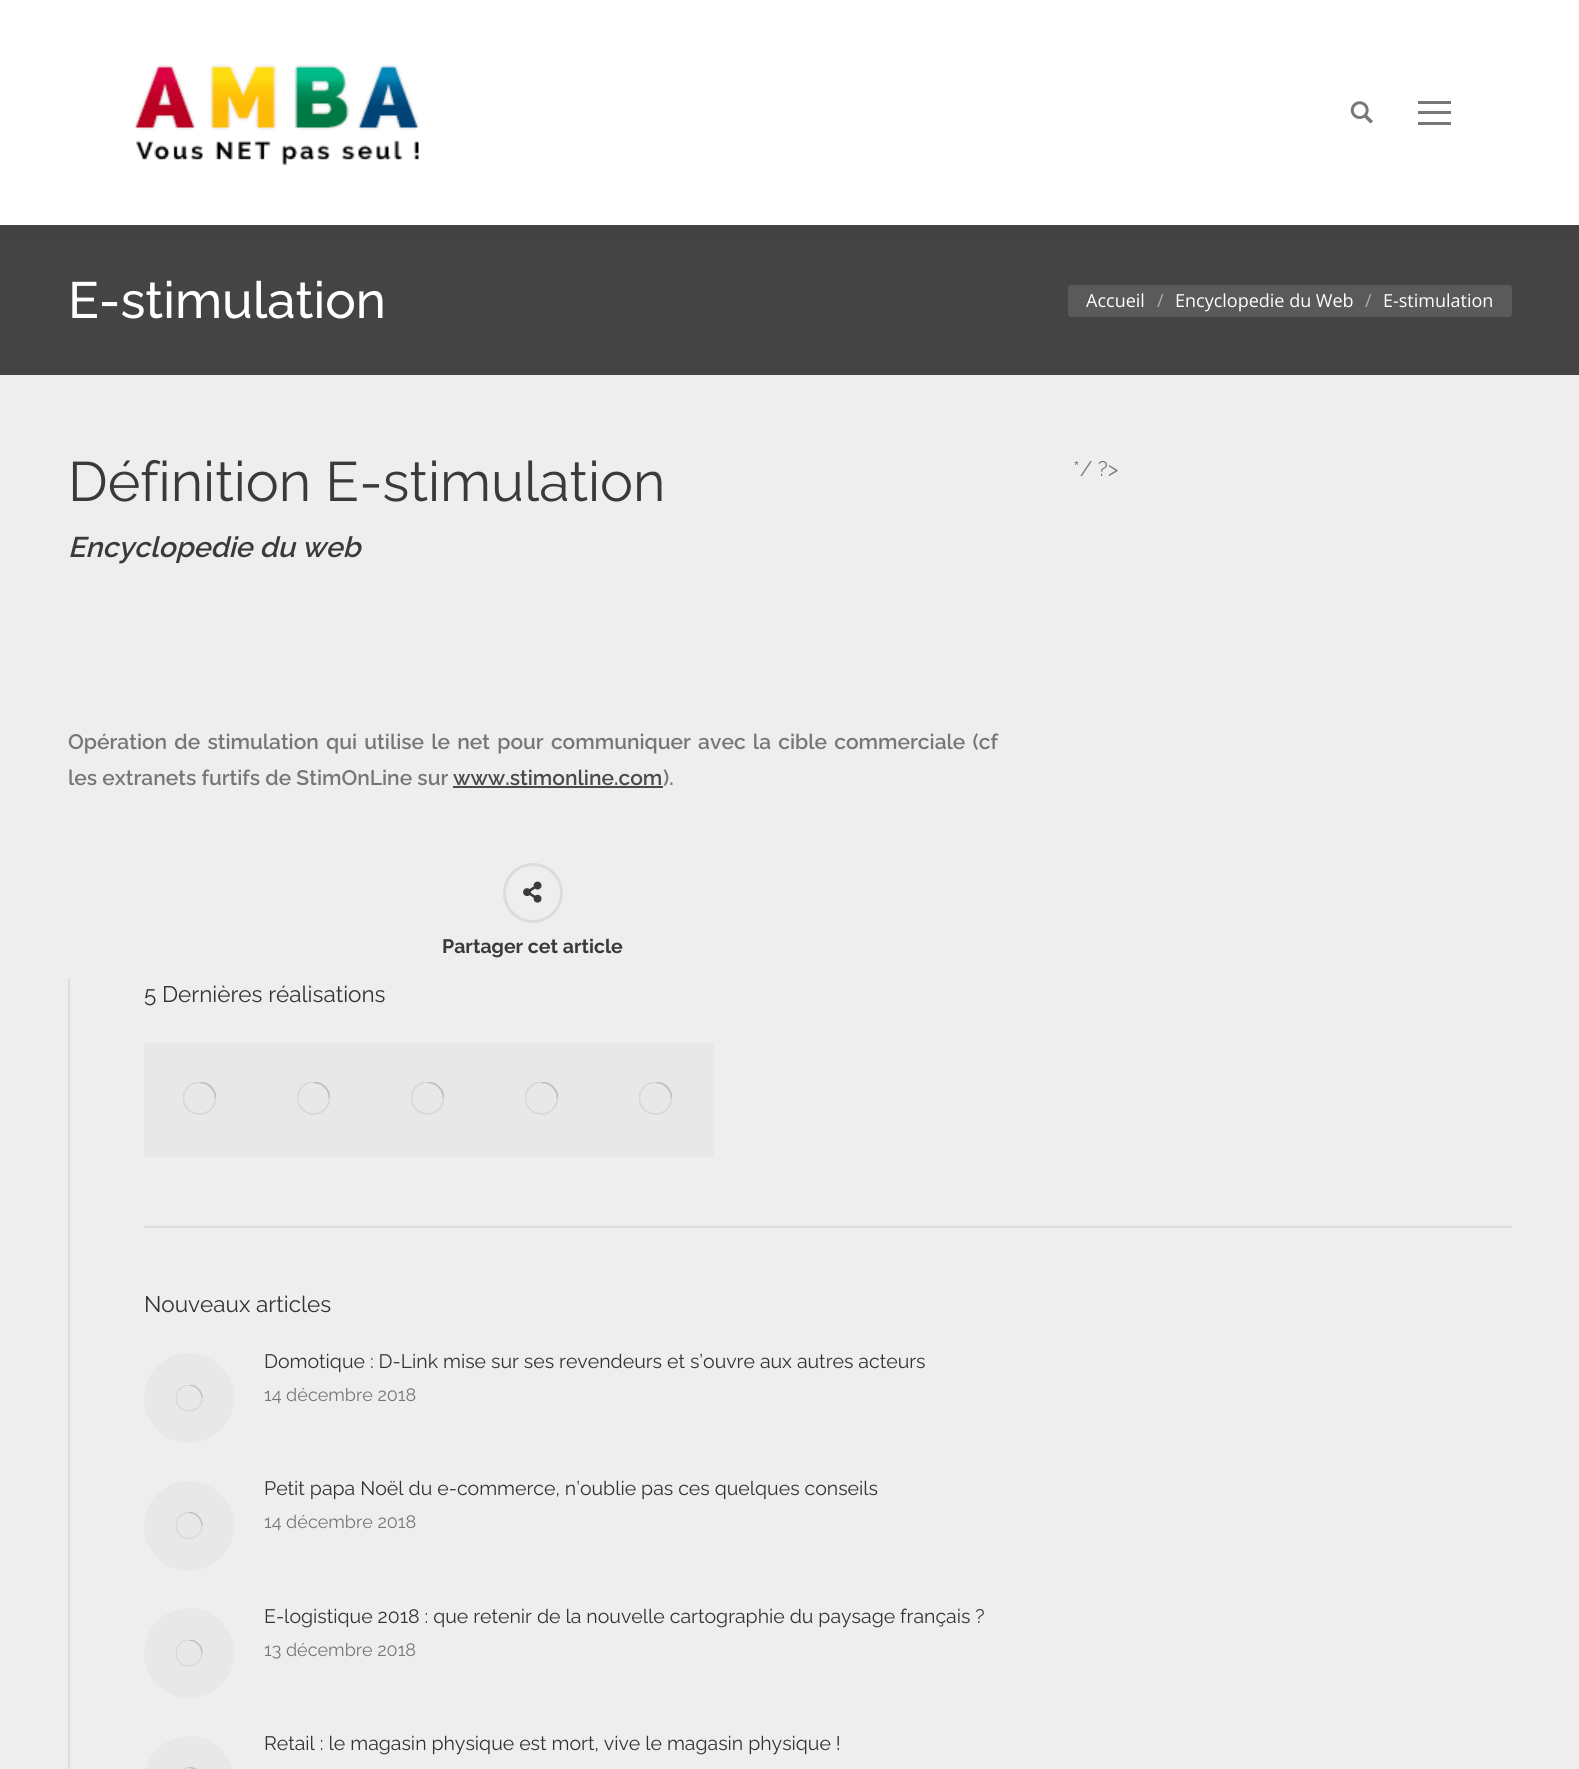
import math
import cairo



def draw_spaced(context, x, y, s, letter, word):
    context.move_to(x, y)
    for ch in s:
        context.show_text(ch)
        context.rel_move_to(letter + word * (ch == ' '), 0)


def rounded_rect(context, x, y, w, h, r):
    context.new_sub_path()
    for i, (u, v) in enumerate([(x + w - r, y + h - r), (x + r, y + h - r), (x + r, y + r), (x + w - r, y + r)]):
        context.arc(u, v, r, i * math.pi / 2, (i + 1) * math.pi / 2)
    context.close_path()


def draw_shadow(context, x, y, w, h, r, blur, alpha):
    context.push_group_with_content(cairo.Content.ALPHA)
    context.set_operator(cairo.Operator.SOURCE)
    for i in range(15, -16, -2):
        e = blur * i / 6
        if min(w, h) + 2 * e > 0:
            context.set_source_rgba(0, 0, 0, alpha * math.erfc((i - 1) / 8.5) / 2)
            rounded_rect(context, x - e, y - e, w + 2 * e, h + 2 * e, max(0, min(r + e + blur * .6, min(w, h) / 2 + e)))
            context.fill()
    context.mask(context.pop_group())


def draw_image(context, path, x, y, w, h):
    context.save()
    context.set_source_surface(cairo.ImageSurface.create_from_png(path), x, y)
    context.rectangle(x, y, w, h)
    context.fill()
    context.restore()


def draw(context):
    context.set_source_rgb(238 / 255, 238 / 255, 238 / 255)
    context.paint()
    context.set_source_rgb(68 / 255, 68 / 255, 68 / 255)
    context.rectangle(0, 225, 1579, 150)
    context.fill()
    context.set_source_rgb(0, 0, 0)
    draw_shadow(context, -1, -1, 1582, 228, 0, 11, 0.07)
    context.set_source_rgb(1, 1, 1)
    context.rectangle(0, 0, 1579, 225)
    context.fill()
    draw_image(context, "images/1.png", 134, 64, 285, 101)
    draw_image(context, "images/2.png", 1350, 101, 23, 23)
    context.set_source_rgb(119 / 255, 119 / 255, 119 / 255)
    context.rectangle(1418, 111, 33, 3)
    context.fill()
    context.rectangle(1418, 101, 33, 3)
    context.fill()
    context.rectangle(1418, 122, 33, 3)
    context.fill()
    context.set_source_rgb(90 / 255, 90 / 255, 90 / 255)
    rounded_rect(context, 1068, 285, 444, 32, 3)
    context.fill()
    context.set_source_rgb(74 / 255, 74 / 255, 74 / 255)
    context.rectangle(453, 786, 210, 2)
    context.fill()
    context.arc(533, 893, 28.5, 0, 2 * math.pi)
    context.set_source_rgb(220 / 255, 220 / 255, 220 / 255)
    context.set_line_width(3)
    context.stroke()
    draw_image(context, "images/3.png", 523, 881, 19, 22)
    context.set_source_rgb(221 / 255, 221 / 255, 221 / 255)
    context.rectangle(68, 978, 2, 791)
    context.fill()
    context.set_source_rgb(232 / 255, 232 / 255, 232 / 255)
    context.rectangle(144, 1043, 570, 114)
    context.fill()
    context.save()
    context.rectangle(183, 1082, 33, 33)
    context.clip()
    context.arc(199.5, 1098, 16, 0, 2 * math.pi)
    context.set_source_rgb(216 / 255, 216 / 255, 216 / 255)
    context.set_line_width(1.8)
    context.stroke()
    context.new_path()
    context.move_to(215.5, 1098)
    context.curve_to(215.5, 1089.5, 208.5, 1082.5, 199.5, 1082.5)
    context.set_source_rgba(119 / 255, 119 / 255, 119 / 255, 0.25)
    context.stroke()
    context.restore()
    context.save()
    context.rectangle(297, 1082, 33, 33)
    context.clip()
    context.arc(313.5, 1098, 16, 0, 2 * math.pi)
    context.set_source_rgb(216 / 255, 216 / 255, 216 / 255)
    context.set_line_width(1.8)
    context.stroke()
    context.new_path()
    context.move_to(329.5, 1098)
    context.curve_to(329.5, 1089.5, 322.5, 1082.5, 313.5, 1082.5)
    context.set_source_rgba(119 / 255, 119 / 255, 119 / 255, 0.25)
    context.stroke()
    context.restore()
    context.save()
    context.rectangle(411, 1082, 33, 33)
    context.clip()
    context.arc(427.5, 1098, 16, 0, 2 * math.pi)
    context.set_source_rgb(216 / 255, 216 / 255, 216 / 255)
    context.set_line_width(1.8)
    context.stroke()
    context.new_path()
    context.move_to(443.5, 1098)
    context.curve_to(443.5, 1089.5, 436.5, 1082.5, 427.5, 1082.5)
    context.set_source_rgba(119 / 255, 119 / 255, 119 / 255, 0.25)
    context.stroke()
    context.restore()
    context.save()
    context.rectangle(525, 1082, 33, 33)
    context.clip()
    context.arc(541.5, 1098, 16, 0, 2 * math.pi)
    context.set_source_rgb(216 / 255, 216 / 255, 216 / 255)
    context.set_line_width(1.8)
    context.stroke()
    context.new_path()
    context.move_to(557.5, 1098)
    context.curve_to(557.5, 1089.5, 550.5, 1082.5, 541.5, 1082.5)
    context.set_source_rgba(119 / 255, 119 / 255, 119 / 255, 0.25)
    context.stroke()
    context.restore()
    context.save()
    context.rectangle(639, 1082, 33, 33)
    context.clip()
    context.arc(655.5, 1098, 16, 0, 2 * math.pi)
    context.set_source_rgb(216 / 255, 216 / 255, 216 / 255)
    context.set_line_width(1.8)
    context.stroke()
    context.new_path()
    context.move_to(671.5, 1098)
    context.curve_to(671.5, 1089.5, 664.5, 1082.5, 655.5, 1082.5)
    context.set_source_rgba(119 / 255, 119 / 255, 119 / 255, 0.25)
    context.stroke()
    context.restore()
    context.set_source_rgb(221 / 255, 221 / 255, 221 / 255)
    context.rectangle(144, 1226, 1368, 2)
    context.fill()
    context.set_source_rgb(232 / 255, 232 / 255, 232 / 255)
    context.arc(189, 1398, 45, 0, 2 * math.pi)
    context.fill()
    context.save()
    context.rectangle(176, 1385, 27, 27)
    context.clip()
    context.arc(189, 1398, 13, 0, 2 * math.pi)
    context.set_source_rgb(216 / 255, 216 / 255, 216 / 255)
    context.set_line_width(1.4)
    context.stroke()
    context.new_path()
    context.move_to(202, 1398)
    context.curve_to(202, 1391, 196, 1385, 189, 1385)
    context.set_source_rgba(119 / 255, 119 / 255, 119 / 255, 0.25)
    context.stroke()
    context.restore()
    context.arc(189, 1526, 45, 0, 2 * math.pi)
    context.fill()
    context.save()
    context.rectangle(176, 1512, 27, 27)
    context.clip()
    context.arc(189, 1525.5, 13, 0, 2 * math.pi)
    context.set_source_rgb(216 / 255, 216 / 255, 216 / 255)
    context.set_line_width(1.4)
    context.stroke()
    context.restore()
    context.new_path()
    context.move_to(202, 1525.5)
    context.curve_to(202, 1518.5, 196, 1512.5, 189, 1512.5)
    context.set_source_rgba(119 / 255, 119 / 255, 119 / 255, 0.25)
    context.set_line_width(1.4)
    context.stroke()
    context.set_source_rgb(232 / 255, 232 / 255, 232 / 255)
    context.arc(189, 1653, 45, 0, 2 * math.pi)
    context.fill()
    context.save()
    context.rectangle(176, 1640, 27, 27)
    context.clip()
    context.arc(189, 1653, 13, 0, 2 * math.pi)
    context.set_source_rgb(216 / 255, 216 / 255, 216 / 255)
    context.stroke()
    context.new_path()
    context.move_to(202, 1653)
    context.curve_to(202, 1646, 196, 1640, 189, 1640)
    context.set_source_rgba(119 / 255, 119 / 255, 119 / 255, 0.25)
    context.stroke()
    context.restore()
    rounded_rect(context, 144, 1736, 90, 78, 45)
    context.fill()
    context.arc(189, 1780.5, 13, 0, 2 * math.pi)
    context.set_source_rgb(216 / 255, 216 / 255, 216 / 255)
    context.stroke()
    context.new_path()
    context.move_to(202, 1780.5)
    context.curve_to(202, 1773.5, 196, 1767.5, 189, 1767.5)
    context.set_source_rgba(119 / 255, 119 / 255, 119 / 255, 0.25)
    context.stroke()
    context.select_font_face("Raleway Medium")
    context.set_font_size(51)
    context.set_source_rgb(1, 1, 1)
    context.move_to(68, 318)
    context.show_text("E-stimulation")
    context.select_font_face("Open Sans")
    context.set_font_size(18)
    context.move_to(1086, 307)
    context.show_text("Accueil")
    context.set_source_rgb(173 / 255, 173 / 255, 173 / 255)
    context.move_to(1157, 307)
    context.show_text("/")
    context.set_source_rgb(1, 1, 1)
    context.move_to(1175, 307)
    context.show_text("Encyclopedie du Web")
    context.set_source_rgb(173 / 255, 173 / 255, 173 / 255)
    context.move_to(1365, 307)
    context.show_text("/")
    context.set_source_rgb(1, 1, 1)
    context.move_to(1383, 307)
    context.show_text("E-stimulation")
    context.select_font_face("Raleway")
    context.set_font_size(55.5)
    context.set_source_rgb(58 / 255, 58 / 255, 58 / 255)
    context.move_to(68, 501)
    context.show_text("Définition E-stimulation")
    context.select_font_face("Raleway SemiBold", cairo.FontSlant.ITALIC)
    context.set_font_size(28.5)
    context.move_to(68, 557)
    context.show_text("Encyclopedie du web")
    context.select_font_face("Raleway")
    context.set_font_size(21)
    context.set_source_rgb(119 / 255, 119 / 255, 119 / 255)
    context.move_to(1073, 476)
    context.show_text("*/ ?>")
    context.select_font_face("Raleway SemiBold")
    draw_spaced(context, 68, 749, "Opération de stimulation qui utilise le net pour communiquer avec la cible commerciale (cf", 0, 2)
    context.move_to(68, 785)
    context.show_text("les extranets furtifs de StimOnLine sur")
    context.set_source_rgb(74 / 255, 74 / 255, 74 / 255)
    context.move_to(453, 785)
    context.show_text("www.stimonline.com")
    context.set_source_rgb(119 / 255, 119 / 255, 119 / 255)
    context.move_to(663, 785)
    context.show_text(").")
    context.select_font_face("Raleway", cairo.FontSlant.NORMAL, cairo.FontWeight.BOLD)
    context.set_font_size(19.5)
    context.set_source_rgb(58 / 255, 58 / 255, 58 / 255)
    context.move_to(442, 953)
    context.show_text("Partager cet article")
    context.select_font_face("Raleway")
    context.set_font_size(22.5)
    context.set_source_rgb(51 / 255, 51 / 255, 51 / 255)
    context.move_to(144, 1002)
    context.show_text("5 Dernières réalisations")
    context.move_to(144, 1312)
    context.show_text("Nouveaux articles")
    context.set_font_size(19.5)
    context.move_to(264, 1368)
    context.show_text("Domotique : D-Link mise sur ses revendeurs et s’ouvre aux autres acteurs")
    context.set_font_size(18)
    context.set_source_rgb(119 / 255, 119 / 255, 119 / 255)
    context.move_to(264, 1401)
    context.show_text("14 décembre 2018")
    context.set_font_size(19.5)
    context.set_source_rgb(51 / 255, 51 / 255, 51 / 255)
    context.move_to(264, 1495)
    context.show_text("Petit papa Noël du e-commerce, n’oublie pas ces quelques conseils")
    context.set_font_size(18)
    context.set_source_rgb(119 / 255, 119 / 255, 119 / 255)
    context.move_to(264, 1528)
    context.show_text("14 décembre 2018")
    context.set_font_size(19.5)
    context.set_source_rgb(51 / 255, 51 / 255, 51 / 255)
    context.move_to(264, 1623)
    context.show_text("E-logistique 2018 : que retenir de la nouvelle cartographie du paysage français ?")
    context.set_font_size(18)
    context.set_source_rgb(119 / 255, 119 / 255, 119 / 255)
    context.move_to(264, 1656)
    context.show_text("13 décembre 2018")
    context.set_font_size(19.5)
    context.set_source_rgb(51 / 255, 51 / 255, 51 / 255)
    context.move_to(264, 1750)
    context.show_text("Retail : le magasin physique est mort, vive le magasin physique !")


surface = cairo.ImageSurface(cairo.Format.RGB24, 1579, 1769)
context = cairo.Context(surface)
options = cairo.FontOptions()
options.set_hint_metrics(cairo.HintMetrics.OFF)
options.set_hint_style(cairo.HintStyle.NONE)
context.set_font_options(options)
context.set_miter_limit(4)
draw(context)
surface.write_to_png("out.png")
